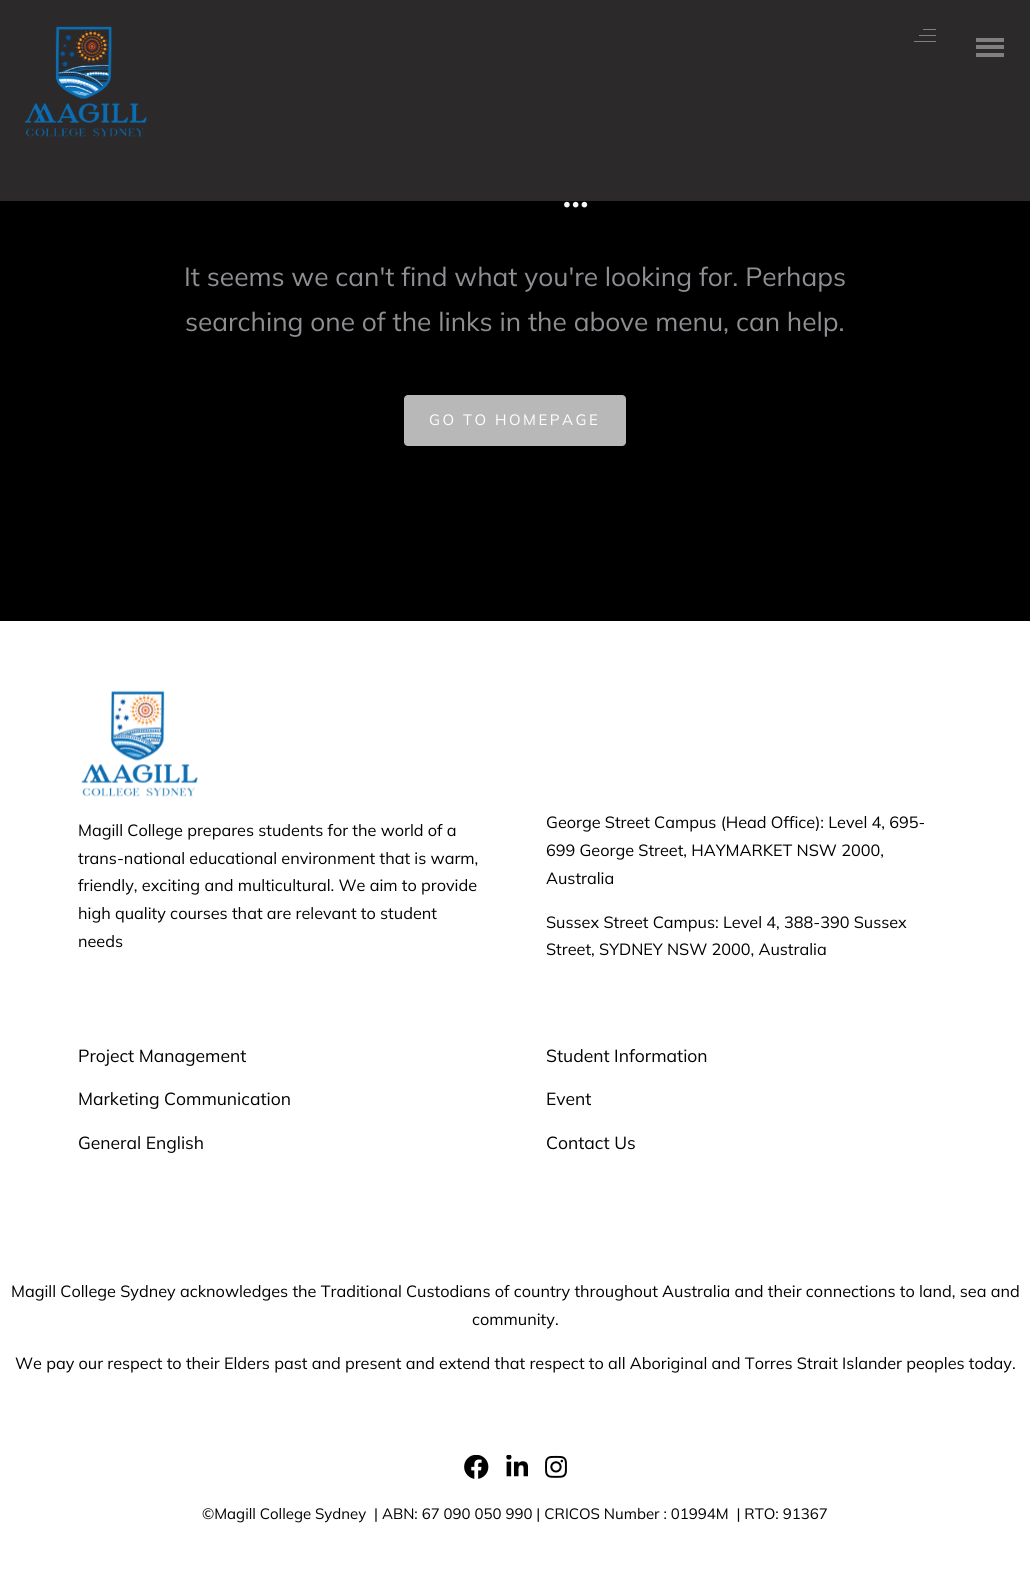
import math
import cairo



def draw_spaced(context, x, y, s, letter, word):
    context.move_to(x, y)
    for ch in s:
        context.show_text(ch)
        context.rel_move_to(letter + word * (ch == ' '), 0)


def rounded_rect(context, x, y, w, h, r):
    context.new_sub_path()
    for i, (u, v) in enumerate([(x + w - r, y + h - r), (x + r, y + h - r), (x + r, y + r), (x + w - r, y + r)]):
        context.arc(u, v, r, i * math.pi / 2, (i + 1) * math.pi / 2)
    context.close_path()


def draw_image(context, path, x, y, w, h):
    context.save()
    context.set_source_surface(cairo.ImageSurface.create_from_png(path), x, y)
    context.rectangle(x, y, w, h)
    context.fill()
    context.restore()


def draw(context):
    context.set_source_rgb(0, 0, 0)
    context.paint()
    context.set_source_rgb(43 / 255, 41 / 255, 41 / 255)
    context.rectangle(0, 0, 1030, 201)
    context.fill()
    draw_image(context, "images/1.png", 25, 26, 122, 111)
    context.set_source_rgb(128 / 255, 128 / 255, 128 / 255)
    context.rectangle(923, 29, 13, 1)
    context.fill()
    context.rectangle(919, 35, 17, 1)
    context.fill()
    context.rectangle(914, 41, 22, 1)
    context.fill()
    context.rectangle(976, 38, 28, 4)
    context.fill()
    context.rectangle(976, 45, 28, 4)
    context.fill()
    context.rectangle(976, 53, 28, 4)
    context.fill()
    context.set_source_rgb(184 / 255, 184 / 255, 184 / 255)
    rounded_rect(context, 404, 395, 222, 51, 4)
    context.fill()
    context.set_source_rgb(1, 1, 1)
    context.rectangle(0, 621, 1030, 957)
    context.fill()
    draw_image(context, "images/2.png", 81, 690, 117, 107)
    draw_image(context, "images/3.png", 464, 1455, 25, 24)
    draw_image(context, "images/4.png", 506, 1455, 22, 22)
    draw_image(context, "images/5.png", 545, 1455, 22, 23)
    context.select_font_face("Hind Light")
    context.set_font_size(55)
    context.set_source_rgb(247 / 255, 247 / 255, 247 / 255)
    draw_spaced(context, 563, 207, "...", 1, 0)
    context.select_font_face("Mulish")
    context.set_font_size(26.25)
    context.set_source_rgb(144 / 255, 144 / 255, 148 / 255)
    context.move_to(184, 286)
    context.show_text("It seems we can't find what you're looking for. Perhaps")
    context.move_to(185, 331)
    context.show_text("searching one of the links in the above menu, can help.")
    context.set_font_size(15)
    context.set_source_rgb(1, 1, 1)
    draw_spaced(context, 429, 425, "GO TO HOMEPAGE", 2.5, 0)
    context.set_font_size(16.25)
    context.set_source_rgb(0, 0, 0)
    context.move_to(78, 836)
    context.show_text("Magill College prepares students for the world of a")
    context.move_to(78, 864)
    context.show_text("trans-national educational environment that is warm,")
    context.move_to(78, 891)
    context.show_text("friendly, exciting and multicultural. We aim to provide")
    context.move_to(78, 919)
    context.show_text("high quality courses that are relevant to student")
    context.move_to(78, 947)
    context.show_text("needs")
    context.move_to(546, 828)
    context.show_text("George Street Campus (Head Office): Level 4, 695-")
    context.move_to(546, 856)
    context.show_text("699 George Street, HAYMARKET NSW 2000,")
    context.move_to(546, 884)
    context.show_text("Australia")
    context.move_to(546, 928)
    context.show_text("Sussex Street Campus: Level 4, 388-390 Sussex")
    context.move_to(546, 955)
    context.show_text("Street, SYDNEY NSW 2000, Australia")
    context.set_font_size(17.5)
    context.move_to(78, 1062)
    context.show_text("Project Management")
    context.move_to(78, 1105)
    context.show_text("Marketing Communication")
    context.move_to(78, 1149)
    context.show_text("General English")
    context.move_to(546, 1062)
    context.show_text("Student Information")
    context.move_to(546, 1105)
    context.show_text("Event")
    context.move_to(546, 1149)
    context.show_text("Contact Us")
    context.set_font_size(16.25)
    context.move_to(11, 1297)
    context.show_text("Magill College Sydney acknowledges the Traditional Custodians of country throughout Australia and their connections to land, sea and")
    context.move_to(472, 1325)
    context.show_text("community.")
    context.move_to(15, 1369)
    context.show_text("We pay our respect to their Elders past and present and extend that respect to all Aboriginal and Torres Strait Islander peoples today.")
    context.set_font_size(15)
    context.move_to(202, 1519)
    context.show_text("©Magill College Sydney  | ABN: 67 090 050 990 | CRICOS Number : 01994M  | RTO: 91367")


surface = cairo.ImageSurface(cairo.Format.RGB24, 1030, 1578)
context = cairo.Context(surface)
options = cairo.FontOptions()
options.set_hint_metrics(cairo.HintMetrics.OFF)
options.set_hint_style(cairo.HintStyle.NONE)
context.set_font_options(options)
context.set_miter_limit(4)
draw(context)
surface.write_to_png("out.png")
